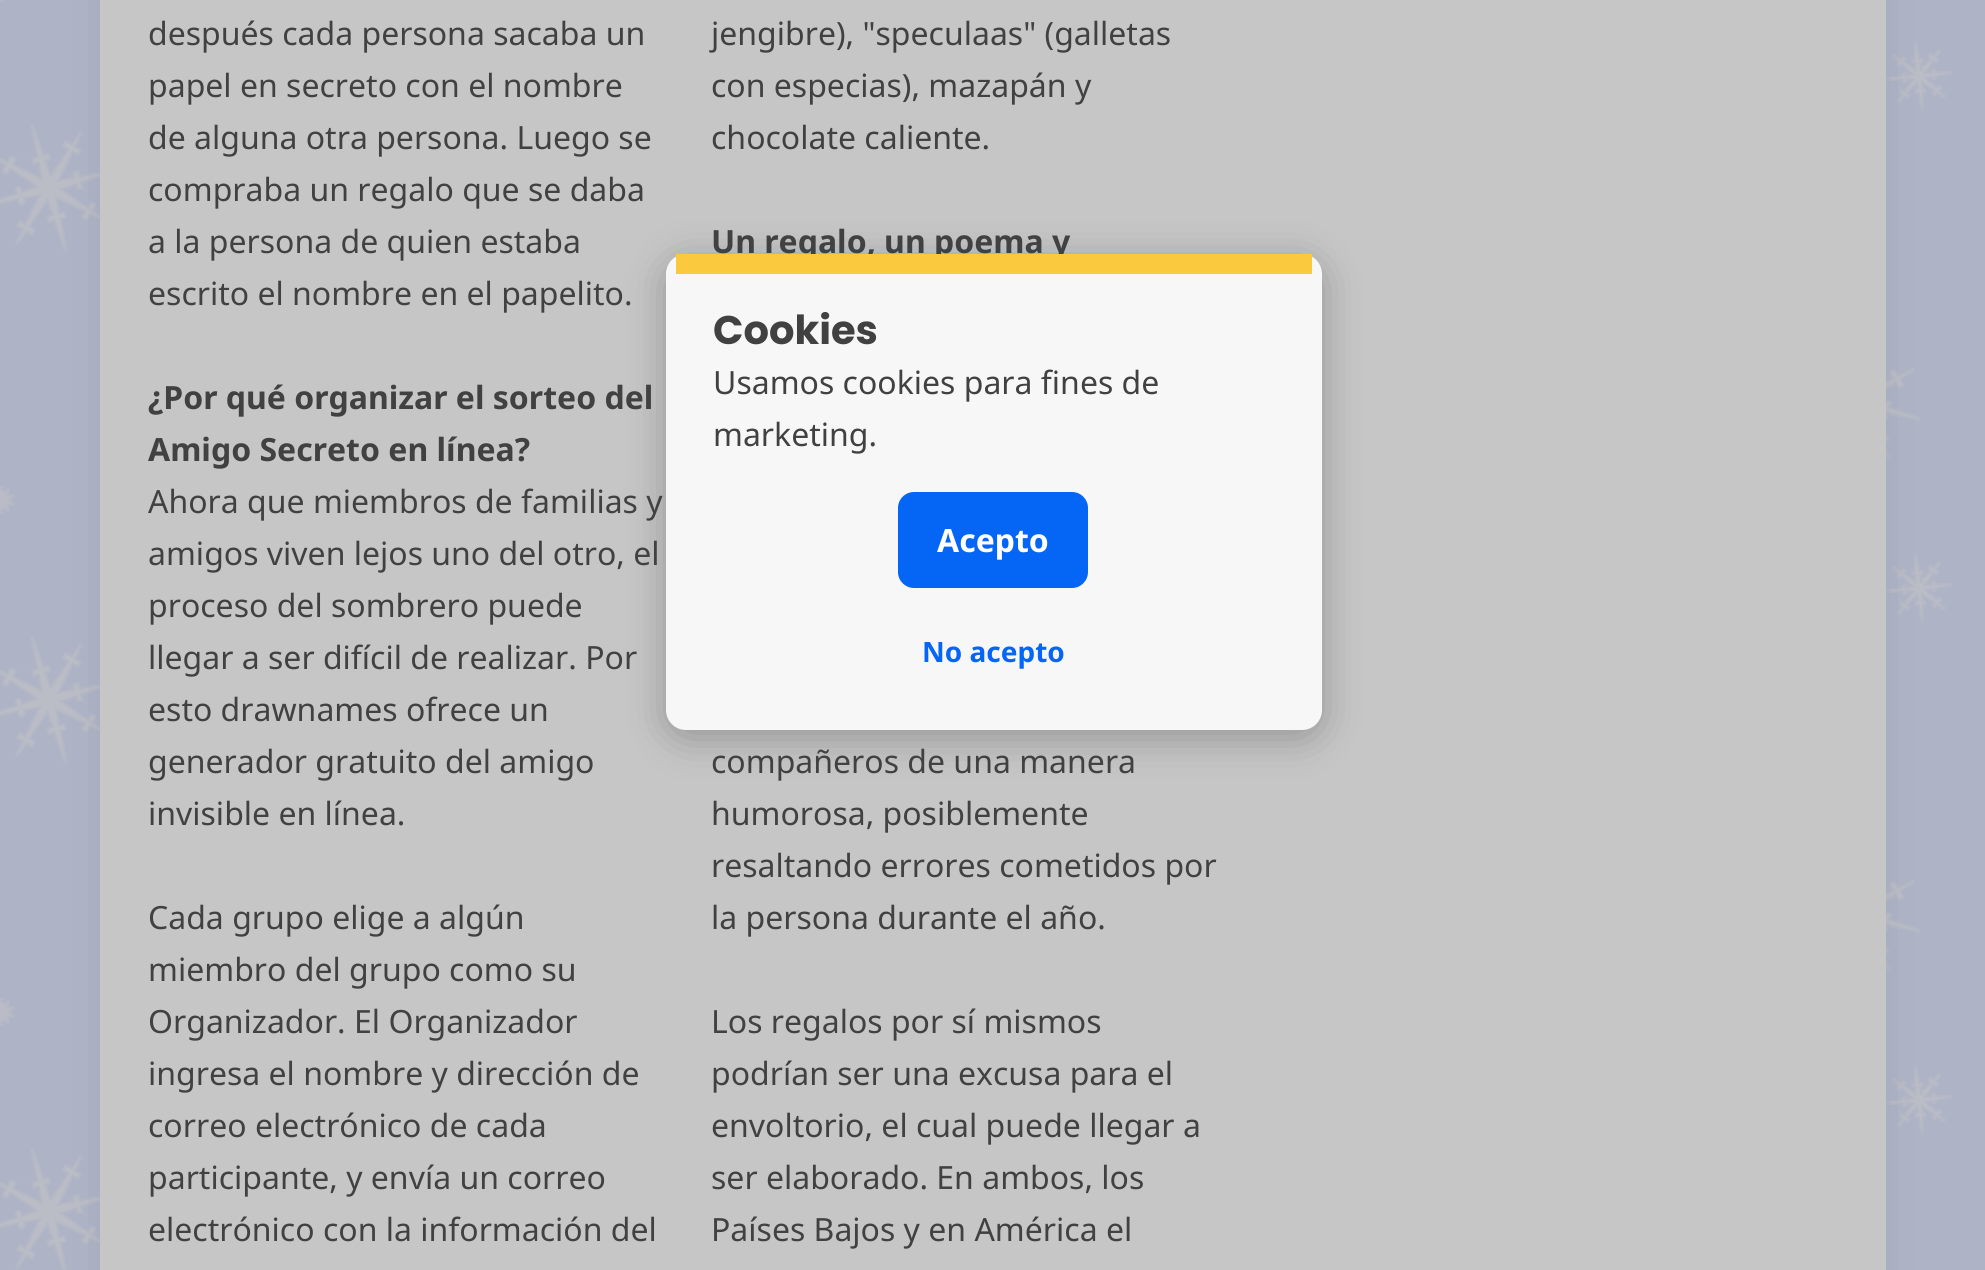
import math
import cairo



def rounded_rect(context, x, y, w, h, r):
    context.new_sub_path()
    for i, (u, v) in enumerate([(x + w - r, y + h - r), (x + r, y + h - r), (x + r, y + r), (x + w - r, y + r)]):
        context.arc(u, v, r, i * math.pi / 2, (i + 1) * math.pi / 2)
    context.close_path()


def draw_shadow(context, x, y, w, h, r, blur, alpha):
    context.push_group_with_content(cairo.Content.ALPHA)
    context.set_operator(cairo.Operator.SOURCE)
    for i in range(15, -16, -2):
        e = blur * i / 6
        if min(w, h) + 2 * e > 0:
            context.set_source_rgba(0, 0, 0, alpha * math.erfc((i - 1) / 8.5) / 2)
            rounded_rect(context, x - e, y - e, w + 2 * e, h + 2 * e, max(0, min(r + e + blur * .6, min(w, h) / 2 + e)))
            context.fill()
    context.mask(context.pop_group())


def draw_image(context, path, x, y, w, h):
    context.save()
    context.set_source_surface(cairo.ImageSurface.create_from_png(path), x, y)
    context.rectangle(x, y, w, h)
    context.fill()
    context.restore()


def draw(context):
    context.set_source_rgb(174 / 255, 179 / 255, 198 / 255)
    context.paint()
    draw_image(context, "images/1.png", 0, 0, 1953, 1270)
    context.set_source_rgb(20 / 255, 20 / 255, 20 / 255)
    draw_shadow(context, 124, -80, 1738, 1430, 8, 24, 0.24)
    context.set_source_rgb(198 / 255, 198 / 255, 198 / 255)
    context.rectangle(100, 0, 1786, 1270)
    context.fill()
    context.set_source_rgb(0, 0, 0)
    draw_shadow(context, 666, 262, 656, 476, 20, 20, 0.25)
    context.select_font_face("Noto Sans")
    context.set_font_size(32)
    context.set_source_rgb(65 / 255, 65 / 255, 65 / 255)
    context.move_to(148, 45)
    context.show_text("después cada persona sacaba un")
    context.move_to(148, 97)
    context.show_text("papel en secreto con el nombre")
    context.move_to(148, 149)
    context.show_text("de alguna otra persona. Luego se")
    context.move_to(148, 201)
    context.show_text("compraba un regalo que se daba")
    context.move_to(148, 253)
    context.show_text("a la persona de quien estaba")
    context.move_to(148, 305)
    context.show_text("escrito el nombre en el papelito.")
    context.select_font_face("Noto Sans", cairo.FontSlant.NORMAL, cairo.FontWeight.BOLD)
    context.move_to(148, 409)
    context.show_text("¿Por qué organizar el sorteo del")
    context.move_to(148, 461)
    context.show_text("Amigo Secreto en línea?")
    context.select_font_face("Noto Sans")
    context.move_to(148, 513)
    context.show_text("Ahora que miembros de familias y")
    context.move_to(148, 565)
    context.show_text("amigos viven lejos uno del otro, el")
    context.move_to(148, 617)
    context.show_text("proceso del sombrero puede")
    context.move_to(148, 669)
    context.show_text("llegar a ser difícil de realizar. Por")
    context.move_to(148, 721)
    context.show_text("esto drawnames ofrece un")
    context.move_to(148, 773)
    context.show_text("generador gratuito del amigo")
    context.move_to(148, 825)
    context.show_text("invisible en línea.")
    context.move_to(148, 929)
    context.show_text("Cada grupo elige a algún")
    context.move_to(148, 981)
    context.show_text("miembro del grupo como su")
    context.move_to(148, 1033)
    context.show_text("Organizador. El Organizador")
    context.move_to(148, 1085)
    context.show_text("ingresa el nombre y dirección de")
    context.move_to(148, 1137)
    context.show_text("correo electrónico de cada")
    context.move_to(148, 1189)
    context.show_text("participante, y envía un correo")
    context.move_to(148, 1241)
    context.show_text("electrónico con la información del")
    context.move_to(711, 45)
    context.show_text("jengibre), \"speculaas\" (galletas")
    context.move_to(711, 97)
    context.show_text("con especias), mazapán y")
    context.move_to(711, 149)
    context.show_text("chocolate caliente.")
    context.select_font_face("Noto Sans", cairo.FontSlant.NORMAL, cairo.FontWeight.BOLD)
    context.move_to(711, 253)
    context.show_text("Un regalo, un poema y")
    context.select_font_face("Noto Sans")
    context.move_to(711, 773)
    context.show_text("compañeros de una manera")
    context.move_to(711, 825)
    context.show_text("humorosa, posiblemente")
    context.move_to(711, 877)
    context.show_text("resaltando errores cometidos por")
    context.move_to(711, 929)
    context.show_text("la persona durante el año.")
    context.move_to(711, 1033)
    context.show_text("Los regalos por sí mismos")
    context.move_to(711, 1085)
    context.show_text("podrían ser una excusa para el")
    context.move_to(711, 1137)
    context.show_text("envoltorio, el cual puede llegar a")
    context.move_to(711, 1189)
    context.show_text("ser elaborado. En ambos, los")
    context.move_to(711, 1241)
    context.show_text("Países Bajos y en América el")
    context.set_source_rgb(247 / 255, 247 / 255, 247 / 255)
    rounded_rect(context, 666, 254, 656, 476, 20)
    context.fill()
    context.set_source_rgb(250 / 255, 201 / 255, 61 / 255)
    context.rectangle(676, 254, 636, 20)
    context.fill()
    context.select_font_face("Poppins", cairo.FontSlant.NORMAL, cairo.FontWeight.BOLD)
    context.set_font_size(40)
    context.set_source_rgb(65 / 255, 65 / 255, 65 / 255)
    context.move_to(713, 344)
    context.show_text("Cookies")
    context.select_font_face("Noto Sans")
    context.set_font_size(32)
    context.move_to(713, 394)
    context.show_text("Usamos cookies para fines de")
    context.move_to(713, 446)
    context.show_text("marketing.")
    context.set_source_rgb(5 / 255, 101 / 255, 245 / 255)
    rounded_rect(context, 898, 492, 190, 96, 16)
    context.fill()
    context.select_font_face("Noto Sans", cairo.FontSlant.NORMAL, cairo.FontWeight.BOLD)
    context.set_source_rgb(1, 1, 1)
    context.move_to(937, 552)
    context.show_text("Acepto")
    context.set_font_size(28)
    context.set_source_rgb(5 / 255, 101 / 255, 245 / 255)
    context.move_to(922, 662)
    context.show_text("No acepto")


surface = cairo.ImageSurface(cairo.Format.RGB24, 1985, 1270)
context = cairo.Context(surface)
options = cairo.FontOptions()
options.set_hint_metrics(cairo.HintMetrics.OFF)
options.set_hint_style(cairo.HintStyle.NONE)
context.set_font_options(options)
context.set_miter_limit(4)
draw(context)
surface.write_to_png("out.png")
